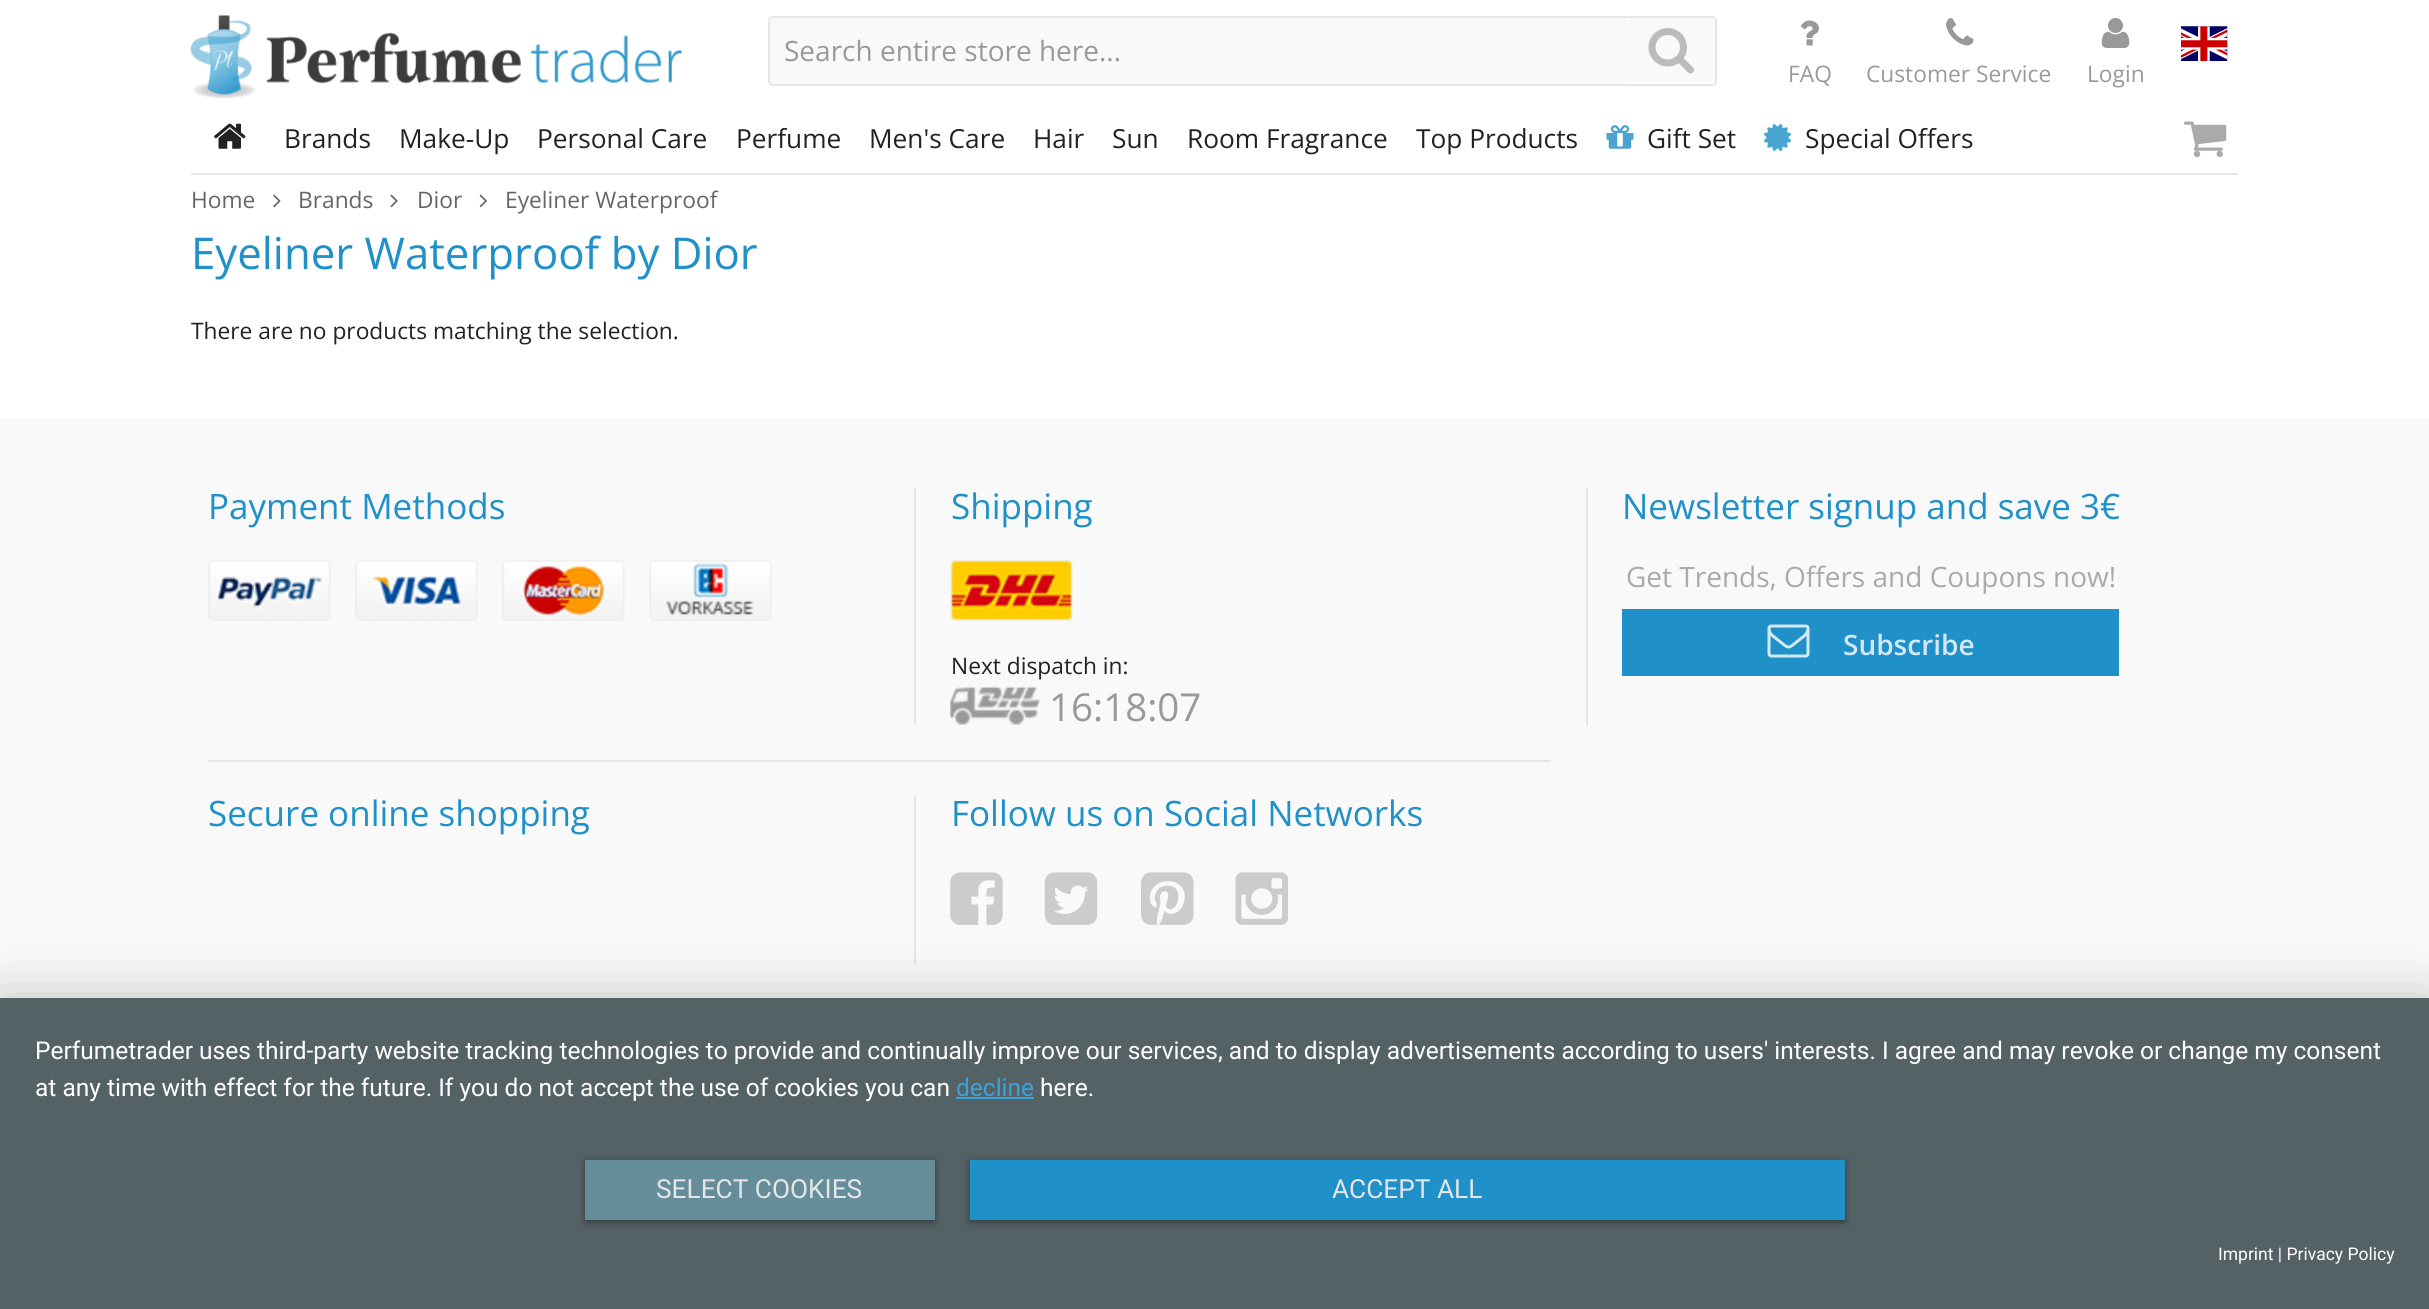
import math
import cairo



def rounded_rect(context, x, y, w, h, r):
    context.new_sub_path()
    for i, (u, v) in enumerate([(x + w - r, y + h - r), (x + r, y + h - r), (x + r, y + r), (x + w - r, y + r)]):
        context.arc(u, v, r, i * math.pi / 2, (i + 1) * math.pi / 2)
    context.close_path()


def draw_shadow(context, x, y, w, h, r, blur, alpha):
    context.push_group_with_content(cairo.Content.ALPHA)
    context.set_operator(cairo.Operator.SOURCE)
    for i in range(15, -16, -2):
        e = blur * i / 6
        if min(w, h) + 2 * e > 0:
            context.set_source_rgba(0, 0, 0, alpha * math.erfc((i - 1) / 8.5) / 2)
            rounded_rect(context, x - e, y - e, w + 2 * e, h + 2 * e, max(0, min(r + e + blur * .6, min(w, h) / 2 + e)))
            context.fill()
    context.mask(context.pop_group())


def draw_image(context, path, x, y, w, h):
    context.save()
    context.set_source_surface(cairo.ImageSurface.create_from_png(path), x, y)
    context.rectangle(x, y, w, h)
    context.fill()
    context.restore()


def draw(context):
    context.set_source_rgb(1, 1, 1)
    context.paint()
    draw_image(context, "images/1.png", 190, 15, 492, 84)
    rounded_rect(context, 769, 17, 947, 68, 4)
    context.set_source_rgb(230 / 255, 230 / 255, 230 / 255)
    context.stroke()
    context.save()
    rounded_rect(context, 770, 18, 945, 66, 4)
    context.clip()
    context.set_source_rgb(249 / 255, 249 / 255, 249 / 255)
    context.new_path()
    context.move_to(775, 18)
    context.line_to(1623, 18)
    context.curve_to(1626, 18, 1628, 20, 1628, 23)
    context.line_to(1628, 84)
    context.line_to(774, 84)
    context.curve_to(772, 84, 770, 82, 770, 80)
    context.line_to(770, 23)
    context.curve_to(770, 20, 772, 18, 775, 18)
    context.close_path()
    context.fill()
    context.new_path()
    context.move_to(1633, 18)
    context.line_to(1710, 18)
    context.curve_to(1713, 18, 1715, 20, 1715, 23)
    context.line_to(1715, 82)
    context.line_to(1628, 82)
    context.line_to(1628, 23)
    context.curve_to(1628, 20, 1630, 18, 1633, 18)
    context.close_path()
    context.fill()
    context.restore()
    draw_image(context, "images/2.png", 1648, 28, 46, 46)
    draw_image(context, "images/3.png", 2181, 26, 47, 35)
    draw_image(context, "images/4.png", 1801, 20, 18, 26)
    draw_image(context, "images/5.png", 1946, 18, 28, 28)
    draw_image(context, "images/6.png", 2101, 18, 29, 30)
    context.rectangle(191, 173, 2047, 2)
    context.fill()
    draw_image(context, "images/7.png", 214, 123, 32, 26)
    draw_image(context, "images/8.png", 1606, 125, 28, 24)
    draw_image(context, "images/9.png", 1764, 124, 27, 27)
    draw_image(context, "images/10.png", 2184, 121, 43, 37)
    draw_image(context, "images/11.png", 273, 194, 8, 14)
    draw_image(context, "images/12.png", 390, 194, 8, 14)
    draw_image(context, "images/13.png", 479, 194, 8, 14)
    context.set_source_rgb(249 / 255, 249 / 255, 249 / 255)
    context.rectangle(0, 418, 2429, 580)
    context.fill()
    context.set_source_rgb(230 / 255, 230 / 255, 230 / 255)
    context.rectangle(208, 760, 1343, 2)
    context.fill()
    draw_image(context, "images/14.png", 208, 560, 123, 61)
    draw_image(context, "images/15.png", 355, 560, 123, 61)
    draw_image(context, "images/16.png", 502, 560, 123, 61)
    draw_image(context, "images/17.png", 649, 560, 123, 61)
    context.rectangle(914, 488, 2, 237)
    context.fill()
    draw_image(context, "images/18.png", 950, 560, 123, 61)
    draw_image(context, "images/19.png", 950, 686, 90, 39)
    context.rectangle(1586, 488, 2, 238)
    context.fill()
    context.set_source_rgb(31 / 255, 144 / 255, 200 / 255)
    context.rectangle(1622, 609, 497, 67)
    context.fill()
    draw_image(context, "images/20.png", 1767, 624, 43, 34)
    context.set_source_rgb(230 / 255, 230 / 255, 230 / 255)
    context.rectangle(914, 796, 2, 168)
    context.fill()
    draw_image(context, "images/21.png", 950, 872, 53, 53)
    draw_image(context, "images/22.png", 1044, 872, 54, 53)
    draw_image(context, "images/23.png", 1141, 872, 53, 53)
    draw_image(context, "images/24.png", 1235, 872, 53, 53)
    context.set_source_rgb(0, 0, 0)
    draw_shadow(context, 0, 1008, 2429, 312, 0, 31.5, 0.3)
    context.set_source_rgb(84 / 255, 97 / 255, 101 / 255)
    context.rectangle(0, 998, 2429, 311)
    context.fill()
    context.set_source_rgb(59 / 255, 161 / 255, 219 / 255)
    context.rectangle(956, 1097, 78, 2)
    context.fill()
    context.set_source_rgb(0, 0, 0)
    draw_shadow(context, 585, 1162, 350, 60, 0, 3.5, 0.4)
    context.set_source_rgb(101 / 255, 142 / 255, 154 / 255)
    context.rectangle(585, 1160, 350, 60)
    context.fill()
    context.set_source_rgb(0, 0, 0)
    draw_shadow(context, 970, 1162, 875, 60, 0, 3.5, 0.4)
    context.set_source_rgb(31 / 255, 144 / 255, 200 / 255)
    context.rectangle(970, 1160, 875, 60)
    context.fill()
    context.select_font_face("Open Sans")
    context.set_font_size(28)
    context.set_source_rgb(153 / 255, 153 / 255, 153 / 255)
    context.move_to(784, 61)
    context.show_text("Search entire store here...")
    context.set_font_size(22.75)
    context.move_to(1788, 82)
    context.show_text("FAQ")
    context.move_to(1866, 82)
    context.show_text("Customer Service")
    context.move_to(2087, 82)
    context.show_text("Login")
    context.set_font_size(26.25)
    context.set_source_rgb(34 / 255, 34 / 255, 34 / 255)
    context.move_to(284, 148)
    context.show_text("Brands")
    context.move_to(399, 148)
    context.show_text("Make-Up")
    context.move_to(537, 148)
    context.show_text("Personal Care")
    context.move_to(736, 148)
    context.show_text("Perfume")
    context.move_to(869, 148)
    context.show_text("Men's Care")
    context.move_to(1033, 148)
    context.show_text("Hair")
    context.move_to(1112, 148)
    context.show_text("Sun")
    context.move_to(1187, 148)
    context.show_text("Room Fragrance")
    context.move_to(1416, 148)
    context.show_text("Top Products")
    context.move_to(1647, 148)
    context.show_text("Gift Set")
    context.move_to(1805, 148)
    context.show_text("Special Offers")
    context.set_font_size(22.75)
    context.set_source_rgb(102 / 255, 102 / 255, 102 / 255)
    context.move_to(191, 208)
    context.show_text("Home")
    context.move_to(298, 208)
    context.show_text("Brands")
    context.move_to(417, 208)
    context.show_text("Dior")
    context.move_to(505, 208)
    context.show_text("Eyeliner Waterproof")
    context.set_font_size(43.75)
    context.set_source_rgb(31 / 255, 144 / 255, 200 / 255)
    context.move_to(191, 269)
    context.show_text("Eyeliner Waterproof by Dior")
    context.set_font_size(22.75)
    context.set_source_rgb(34 / 255, 34 / 255, 34 / 255)
    context.move_to(191, 339)
    context.show_text("There are no products matching the selection.")
    context.set_font_size(35)
    context.set_source_rgb(31 / 255, 144 / 255, 200 / 255)
    context.move_to(208, 519)
    context.show_text("Payment Methods")
    context.move_to(951, 519)
    context.show_text("Shipping")
    context.set_font_size(22.75)
    context.set_source_rgb(34 / 255, 34 / 255, 34 / 255)
    context.move_to(951, 674)
    context.show_text("Next dispatch in:")
    context.set_font_size(38.5)
    context.set_source_rgb(153 / 255, 153 / 255, 153 / 255)
    context.move_to(1049, 721)
    context.show_text("16:18:07")
    context.set_font_size(35)
    context.set_source_rgb(31 / 255, 144 / 255, 200 / 255)
    context.move_to(1622, 519)
    context.show_text("Newsletter signup and save 3€")
    context.set_font_size(28)
    context.set_source_rgb(170 / 255, 170 / 255, 170 / 255)
    context.move_to(1626, 587)
    context.show_text("Get Trends, Offers and Coupons now!")
    context.select_font_face("Open Sans SemiBold")
    context.set_source_rgb(210 / 255, 233 / 255, 244 / 255)
    context.move_to(1843, 655)
    context.show_text("Subscribe")
    context.select_font_face("Open Sans")
    context.set_font_size(35)
    context.set_source_rgb(31 / 255, 144 / 255, 200 / 255)
    context.move_to(208, 826)
    context.show_text("Secure online shopping")
    context.move_to(951, 826)
    context.show_text("Follow us on Social Networks")
    context.select_font_face("Roboto")
    context.set_font_size(24.5)
    context.set_source_rgb(1, 1, 1)
    context.move_to(35, 1059)
    context.show_text("Perfumetrader uses third-party website tracking technologies to provide and continually improve our services, and to display advertisements according to users' interests. I agree and may revoke or change my consent")
    context.move_to(35, 1096)
    context.show_text("at any time with effect for the future. If you do not accept the use of cookies you can")
    context.set_source_rgb(59 / 255, 161 / 255, 219 / 255)
    context.move_to(956, 1096)
    context.show_text("decline")
    context.set_source_rgb(1, 1, 1)
    context.move_to(1040, 1096)
    context.show_text("here.")
    context.set_font_size(26.25)
    context.set_source_rgb(230 / 255, 230 / 255, 230 / 255)
    context.move_to(656, 1198)
    context.show_text("SELECT COOKIES")
    context.move_to(1332, 1198)
    context.show_text("ACCEPT ALL")
    context.set_font_size(17.5)
    context.set_source_rgb(1, 1, 1)
    context.move_to(2218, 1260)
    context.show_text("Imprint | Privacy Policy")


surface = cairo.ImageSurface(cairo.Format.RGB24, 2429, 1309)
context = cairo.Context(surface)
options = cairo.FontOptions()
options.set_hint_metrics(cairo.HintMetrics.OFF)
options.set_hint_style(cairo.HintStyle.NONE)
context.set_font_options(options)
context.set_miter_limit(4)
draw(context)
surface.write_to_png("out.png")
